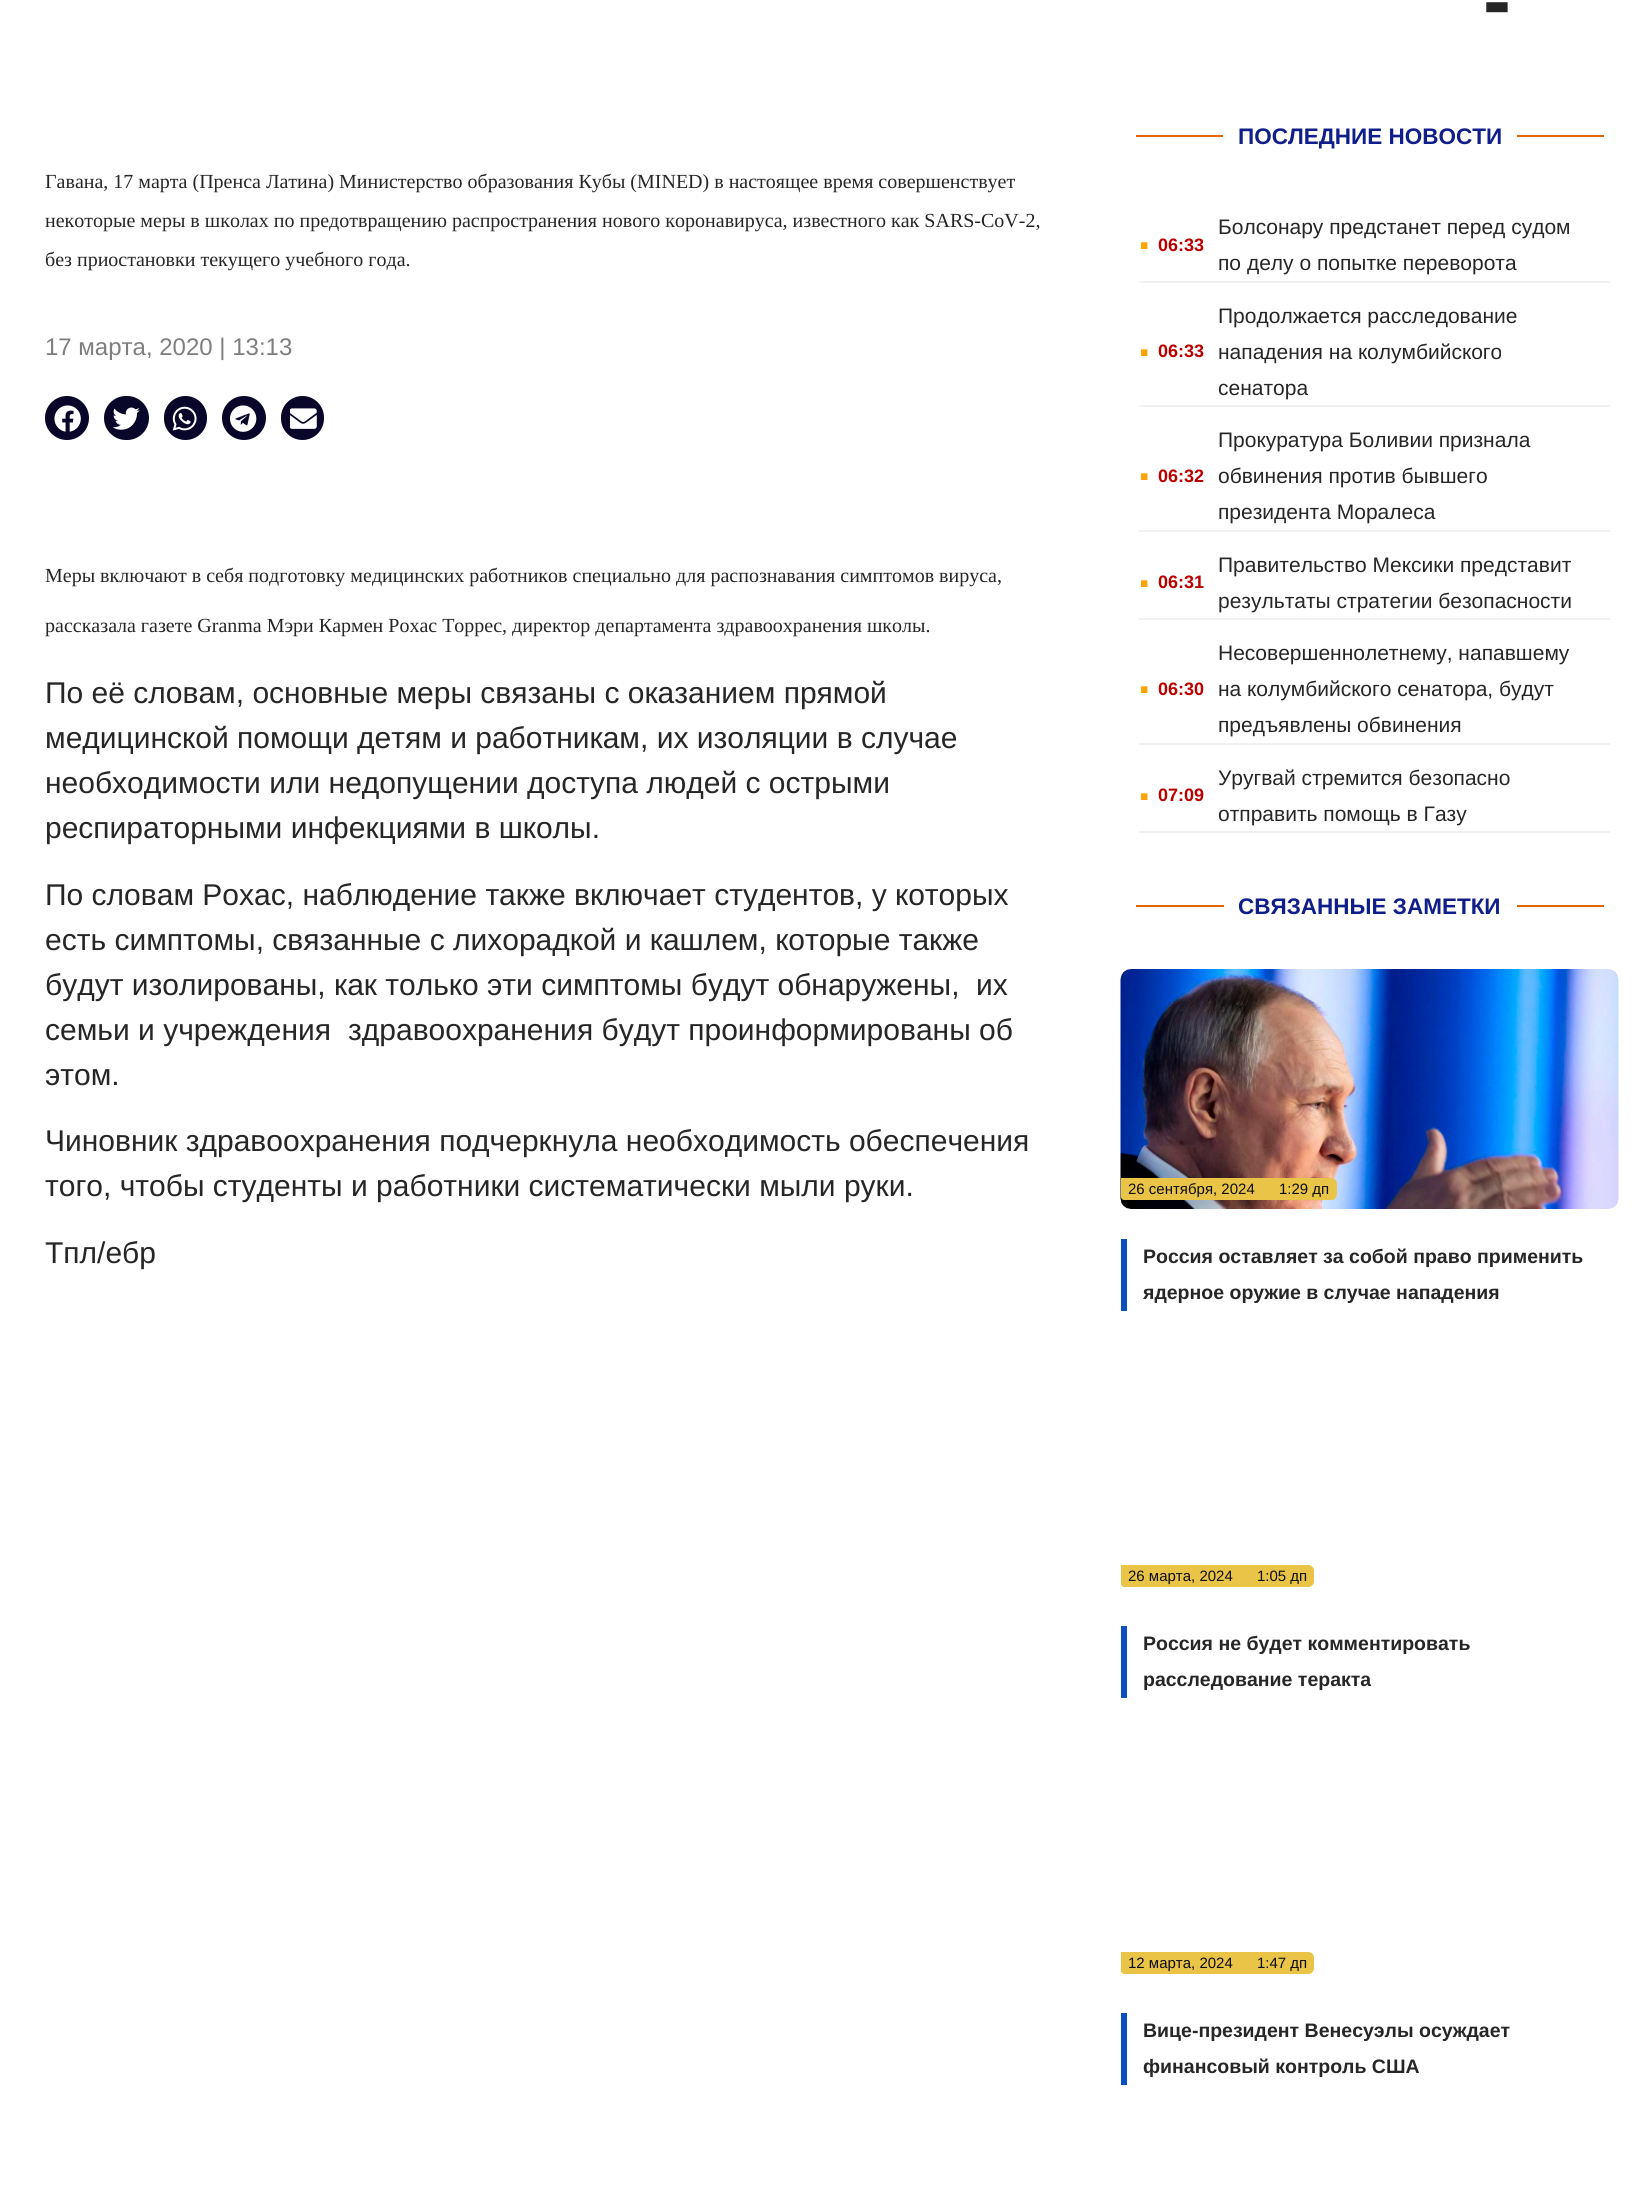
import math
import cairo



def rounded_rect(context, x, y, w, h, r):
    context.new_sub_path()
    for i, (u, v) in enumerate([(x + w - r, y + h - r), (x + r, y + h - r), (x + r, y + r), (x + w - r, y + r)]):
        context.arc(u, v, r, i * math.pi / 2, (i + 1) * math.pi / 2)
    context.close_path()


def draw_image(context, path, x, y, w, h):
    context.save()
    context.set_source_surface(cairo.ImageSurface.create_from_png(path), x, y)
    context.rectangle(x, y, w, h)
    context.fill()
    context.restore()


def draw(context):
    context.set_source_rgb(1, 1, 1)
    context.paint()
    context.set_source_rgb(9 / 255, 6 / 255, 44 / 255)
    context.arc(67, 418, 22, 0, 2 * math.pi)
    context.fill()
    gradient = cairo.LinearGradient(45, 418, 89, 418)
    gradient.add_color_stop_rgba(0, 0, 0, 0, 0.12)
    gradient.add_color_stop_rgba(1, 0, 0, 0, 0)
    context.set_source(gradient)
    context.arc(67, 418, 22, 0, 2 * math.pi)
    context.fill()
    draw_image(context, "images/1.png", 54, 405, 27, 27)
    context.set_source_rgb(9 / 255, 6 / 255, 44 / 255)
    rounded_rect(context, 104, 396, 45, 44, 22)
    context.fill()
    gradient = cairo.LinearGradient(104, 418, 149, 418)
    gradient.add_color_stop_rgba(0, 0, 0, 0, 0.12)
    gradient.add_color_stop_rgba(1, 0, 0, 0, 0)
    context.set_source(gradient)
    rounded_rect(context, 104, 396, 45, 44, 22)
    context.fill()
    draw_image(context, "images/2.png", 113, 407, 27, 23)
    context.set_source_rgb(9 / 255, 6 / 255, 44 / 255)
    rounded_rect(context, 164, 396, 43, 44, 21.5)
    context.fill()
    gradient = cairo.LinearGradient(164, 418, 207, 418)
    gradient.add_color_stop_rgba(0, 0, 0, 0, 0.12)
    gradient.add_color_stop_rgba(1, 0, 0, 0, 0)
    context.set_source(gradient)
    rounded_rect(context, 164, 396, 43, 44, 21.5)
    context.fill()
    draw_image(context, "images/3.png", 172, 406, 25, 25)
    context.set_source_rgb(9 / 255, 6 / 255, 44 / 255)
    context.arc(244, 418, 22, 0, 2 * math.pi)
    context.fill()
    gradient = cairo.LinearGradient(222, 418, 266, 418)
    gradient.add_color_stop_rgba(0, 0, 0, 0, 0.12)
    gradient.add_color_stop_rgba(1, 0, 0, 0, 0)
    context.set_source(gradient)
    context.arc(244, 418, 22, 0, 2 * math.pi)
    context.fill()
    draw_image(context, "images/4.png", 230, 405, 27, 27)
    context.set_source_rgb(9 / 255, 6 / 255, 44 / 255)
    rounded_rect(context, 281, 396, 43, 44, 21.5)
    context.fill()
    gradient = cairo.LinearGradient(281, 418, 324, 418)
    gradient.add_color_stop_rgba(0, 0, 0, 0, 0.12)
    gradient.add_color_stop_rgba(1, 0, 0, 0, 0)
    context.set_source(gradient)
    rounded_rect(context, 281, 396, 43, 44, 21.5)
    context.fill()
    draw_image(context, "images/5.png", 290, 408, 27, 21)
    context.set_source_rgb(223 / 255, 103 / 255, 2 / 255)
    context.rectangle(1136, 135, 87, 2)
    context.fill()
    context.rectangle(1517, 135, 87, 2)
    context.fill()
    context.set_source_rgb(241 / 255, 241 / 255, 241 / 255)
    context.rectangle(1139, 281, 471, 2)
    context.fill()
    context.rectangle(1139, 405, 471, 2)
    context.fill()
    context.rectangle(1139, 530, 471, 2)
    context.fill()
    context.rectangle(1139, 618, 471, 2)
    context.fill()
    context.rectangle(1139, 743, 471, 2)
    context.fill()
    context.rectangle(1139, 831, 471, 2)
    context.fill()
    context.set_source_rgb(223 / 255, 103 / 255, 2 / 255)
    context.rectangle(1136, 905, 88, 2)
    context.fill()
    context.rectangle(1517, 905, 87, 2)
    context.fill()
    draw_image(context, "images/6.png", 1120, 969, 499, 240)
    context.set_source_rgb(233 / 255, 196 / 255, 71 / 255)
    context.new_path()
    context.move_to(1121, 1178)
    context.line_to(1331, 1178)
    context.curve_to(1334.5, 1178, 1337, 1180.5, 1337, 1184)
    context.line_to(1337, 1194)
    context.curve_to(1337, 1197.5, 1334.5, 1200, 1331, 1200)
    context.line_to(1124, 1200)
    context.curve_to(1122.5, 1200, 1121, 1198.5, 1121, 1197)
    context.close_path()
    context.fill()
    context.set_source_rgb(10 / 255, 80 / 255, 190 / 255)
    context.rectangle(1121, 1239, 6, 72)
    context.fill()
    context.set_source_rgb(233 / 255, 196 / 255, 71 / 255)
    context.new_path()
    context.move_to(1121, 1565)
    context.line_to(1308, 1565)
    context.curve_to(1311.5, 1565, 1314, 1567.5, 1314, 1571)
    context.line_to(1314, 1581)
    context.curve_to(1314, 1584.5, 1311.5, 1587, 1308, 1587)
    context.line_to(1124, 1587)
    context.curve_to(1122.5, 1587, 1121, 1585.5, 1121, 1584)
    context.close_path()
    context.fill()
    context.set_source_rgb(10 / 255, 80 / 255, 190 / 255)
    context.rectangle(1121, 1626, 6, 72)
    context.fill()
    context.set_source_rgb(233 / 255, 196 / 255, 71 / 255)
    context.new_path()
    context.move_to(1121, 1952)
    context.line_to(1308, 1952)
    context.curve_to(1311.5, 1952, 1314, 1954.5, 1314, 1958)
    context.line_to(1314, 1968)
    context.curve_to(1314, 1971.5, 1311.5, 1974, 1308, 1974)
    context.line_to(1124, 1974)
    context.curve_to(1122.5, 1974, 1121, 1972.5, 1121, 1971)
    context.close_path()
    context.fill()
    context.set_source_rgb(10 / 255, 80 / 255, 190 / 255)
    context.rectangle(1121, 2013, 6, 72)
    context.fill()
    context.select_font_face("Liberation Sans", cairo.FontSlant.NORMAL, cairo.FontWeight.BOLD)
    context.set_font_size(84)
    context.set_source_rgb(38 / 255, 38 / 255, 38 / 255)
    context.move_to(1483, 29)
    context.show_text("-")
    context.select_font_face("Liberation Serif")
    context.set_font_size(20)
    context.move_to(45, 188)
    context.show_text("Гавана, 17 марта (Пренса Латина) Министерство образования Кубы (MINED) в настоящее время совершенствует")
    context.move_to(45, 227)
    context.show_text("некоторые меры в школах по предотвращению распространения нового коронавируса, известного как SARS-CoV-2,")
    context.move_to(45, 266)
    context.show_text("без приостановки текущего учебного года.")
    context.select_font_face("Liberation Sans")
    context.set_font_size(24)
    context.set_source_rgb(126 / 255, 126 / 255, 126 / 255)
    context.move_to(45, 355)
    context.show_text("17 марта, 2020 | 13:13")
    context.select_font_face("Liberation Serif")
    context.set_font_size(20)
    context.set_source_rgb(38 / 255, 38 / 255, 38 / 255)
    context.move_to(45, 582)
    context.show_text("Меры включают в себя подготовку медицинских работников специально для распознавания симптомов вируса,")
    context.move_to(45, 632)
    context.show_text("рассказала газете Granma Мэри Кармен Рохас Торрес, директор департамента здравоохранения школы.")
    context.select_font_face("Liberation Sans")
    context.set_font_size(30)
    context.move_to(45, 703)
    context.show_text("По её словам, основные меры связаны с оказанием прямой")
    context.move_to(45, 748)
    context.show_text("медицинской помощи детям и работникам, их изоляции в случае")
    context.move_to(45, 793)
    context.show_text("необходимости или недопущении доступа людей с острыми")
    context.move_to(45, 838)
    context.show_text("респираторными инфекциями в школы.")
    context.move_to(45, 905)
    context.show_text("По словам Рохас, наблюдение также включает студентов, у которых")
    context.move_to(45, 950)
    context.show_text("есть симптомы, связанные с лихорадкой и кашлем, которые также")
    context.move_to(45, 995)
    context.show_text("будут изолированы, как только эти симптомы будут обнаружены,")
    context.move_to(976, 995)
    context.show_text("их")
    context.move_to(45, 1040)
    context.show_text("семьи и учреждения")
    context.move_to(348, 1040)
    context.show_text("здравоохранения будут проинформированы об")
    context.move_to(45, 1085)
    context.show_text("этом.")
    context.move_to(45, 1151)
    context.show_text("Чиновник здравоохранения подчеркнула необходимость обеспечения")
    context.move_to(45, 1196)
    context.show_text("того, чтобы студенты и работники систематически мыли руки.")
    context.move_to(45, 1263)
    context.show_text("Тпл/ебр")
    context.select_font_face("Liberation Sans", cairo.FontSlant.NORMAL, cairo.FontWeight.BOLD)
    context.set_font_size(22.5)
    context.set_source_rgb(15 / 255, 30 / 255, 136 / 255)
    context.move_to(1238, 144)
    context.show_text("ПОСЛЕДНИЕ НОВОСТИ")
    context.set_font_size(45)
    context.set_source_rgb(1, 163 / 255, 0)
    context.move_to(1138, 249)
    context.show_text(".")
    context.set_font_size(18)
    context.set_source_rgb(187 / 255, 0, 0)
    context.move_to(1158, 251)
    context.show_text("06:33")
    context.select_font_face("Liberation Sans")
    context.set_font_size(21)
    context.set_source_rgb(38 / 255, 38 / 255, 38 / 255)
    context.move_to(1218, 234)
    context.show_text("Болсонару предстанет перед судом")
    context.move_to(1218, 270)
    context.show_text("по делу о попытке переворота")
    context.select_font_face("Liberation Sans", cairo.FontSlant.NORMAL, cairo.FontWeight.BOLD)
    context.set_font_size(45)
    context.set_source_rgb(1, 163 / 255, 0)
    context.move_to(1138, 356)
    context.show_text(".")
    context.set_font_size(18)
    context.set_source_rgb(187 / 255, 0, 0)
    context.move_to(1158, 357)
    context.show_text("06:33")
    context.select_font_face("Liberation Sans")
    context.set_font_size(21)
    context.set_source_rgb(38 / 255, 38 / 255, 38 / 255)
    context.move_to(1218, 323)
    context.show_text("Продолжается расследование")
    context.move_to(1218, 359)
    context.show_text("нападения на колумбийского")
    context.move_to(1218, 395)
    context.show_text("сенатора")
    context.select_font_face("Liberation Sans", cairo.FontSlant.NORMAL, cairo.FontWeight.BOLD)
    context.set_font_size(45)
    context.set_source_rgb(1, 163 / 255, 0)
    context.move_to(1138, 480)
    context.show_text(".")
    context.set_font_size(18)
    context.set_source_rgb(187 / 255, 0, 0)
    context.move_to(1158, 482)
    context.show_text("06:32")
    context.select_font_face("Liberation Sans")
    context.set_font_size(21)
    context.set_source_rgb(38 / 255, 38 / 255, 38 / 255)
    context.move_to(1218, 447)
    context.show_text("Прокуратура Боливии признала")
    context.move_to(1218, 483)
    context.show_text("обвинения против бывшего")
    context.move_to(1218, 519)
    context.show_text("президента Моралеса")
    context.select_font_face("Liberation Sans", cairo.FontSlant.NORMAL, cairo.FontWeight.BOLD)
    context.set_font_size(45)
    context.set_source_rgb(1, 163 / 255, 0)
    context.move_to(1138, 587)
    context.show_text(".")
    context.set_font_size(18)
    context.set_source_rgb(187 / 255, 0, 0)
    context.move_to(1158, 588)
    context.show_text("06:31")
    context.select_font_face("Liberation Sans")
    context.set_font_size(21)
    context.set_source_rgb(38 / 255, 38 / 255, 38 / 255)
    context.move_to(1218, 572)
    context.show_text("Правительство Мексики представит")
    context.move_to(1218, 608)
    context.show_text("результаты стратегии безопасности")
    context.select_font_face("Liberation Sans", cairo.FontSlant.NORMAL, cairo.FontWeight.BOLD)
    context.set_font_size(45)
    context.set_source_rgb(1, 163 / 255, 0)
    context.move_to(1138, 693)
    context.show_text(".")
    context.set_font_size(18)
    context.set_source_rgb(187 / 255, 0, 0)
    context.move_to(1158, 695)
    context.show_text("06:30")
    context.select_font_face("Liberation Sans")
    context.set_font_size(21)
    context.set_source_rgb(38 / 255, 38 / 255, 38 / 255)
    context.move_to(1218, 660)
    context.show_text("Несовершеннолетнему, напавшему")
    context.move_to(1218, 696)
    context.show_text("на колумбийского сенатора, будут")
    context.move_to(1218, 732)
    context.show_text("предъявлены обвинения")
    context.select_font_face("Liberation Sans", cairo.FontSlant.NORMAL, cairo.FontWeight.BOLD)
    context.set_font_size(45)
    context.set_source_rgb(1, 163 / 255, 0)
    context.move_to(1138, 800)
    context.show_text(".")
    context.set_font_size(18)
    context.set_source_rgb(187 / 255, 0, 0)
    context.move_to(1158, 801)
    context.show_text("07:09")
    context.select_font_face("Liberation Sans")
    context.set_font_size(21)
    context.set_source_rgb(38 / 255, 38 / 255, 38 / 255)
    context.move_to(1218, 785)
    context.show_text("Уругвай стремится безопасно")
    context.move_to(1218, 821)
    context.show_text("отправить помощь в Газу")
    context.select_font_face("Liberation Sans", cairo.FontSlant.NORMAL, cairo.FontWeight.BOLD)
    context.set_font_size(22.5)
    context.set_source_rgb(15 / 255, 30 / 255, 136 / 255)
    context.move_to(1238, 914)
    context.show_text("СВЯЗАННЫЕ ЗАМЕТКИ")
    context.select_font_face("Liberation Sans")
    context.set_font_size(15)
    context.set_source_rgb(12 / 255, 12 / 255, 12 / 255)
    context.move_to(1128, 1194)
    context.show_text("26 сентября, 2024")
    context.move_to(1279, 1194)
    context.show_text("1:29 дп")
    context.select_font_face("Liberation Sans", cairo.FontSlant.NORMAL, cairo.FontWeight.BOLD)
    context.set_font_size(19.5)
    context.set_source_rgb(38 / 255, 38 / 255, 38 / 255)
    context.move_to(1143, 1263)
    context.show_text("Россия оставляет за собой право применить")
    context.move_to(1143, 1299)
    context.show_text("ядерное оружие в случае нападения")
    context.select_font_face("Liberation Sans")
    context.set_font_size(15)
    context.set_source_rgb(12 / 255, 12 / 255, 12 / 255)
    context.move_to(1128, 1581)
    context.show_text("26 марта, 2024")
    context.move_to(1257, 1581)
    context.show_text("1:05 дп")
    context.select_font_face("Liberation Sans", cairo.FontSlant.NORMAL, cairo.FontWeight.BOLD)
    context.set_font_size(19.5)
    context.set_source_rgb(38 / 255, 38 / 255, 38 / 255)
    context.move_to(1143, 1650)
    context.show_text("Россия не будет комментировать")
    context.move_to(1143, 1686)
    context.show_text("расследование теракта")
    context.select_font_face("Liberation Sans")
    context.set_font_size(15)
    context.set_source_rgb(12 / 255, 12 / 255, 12 / 255)
    context.move_to(1128, 1968)
    context.show_text("12 марта, 2024")
    context.move_to(1257, 1968)
    context.show_text("1:47 дп")
    context.select_font_face("Liberation Sans", cairo.FontSlant.NORMAL, cairo.FontWeight.BOLD)
    context.set_font_size(19.5)
    context.set_source_rgb(38 / 255, 38 / 255, 38 / 255)
    context.move_to(1143, 2037)
    context.show_text("Вице-президент Венесуэлы осуждает")
    context.move_to(1143, 2073)
    context.show_text("финансовый контроль США")


surface = cairo.ImageSurface(cairo.Format.RGB24, 1644, 2198)
context = cairo.Context(surface)
options = cairo.FontOptions()
options.set_hint_metrics(cairo.HintMetrics.OFF)
options.set_hint_style(cairo.HintStyle.NONE)
context.set_font_options(options)
context.set_miter_limit(4)
draw(context)
surface.write_to_png("out.png")
